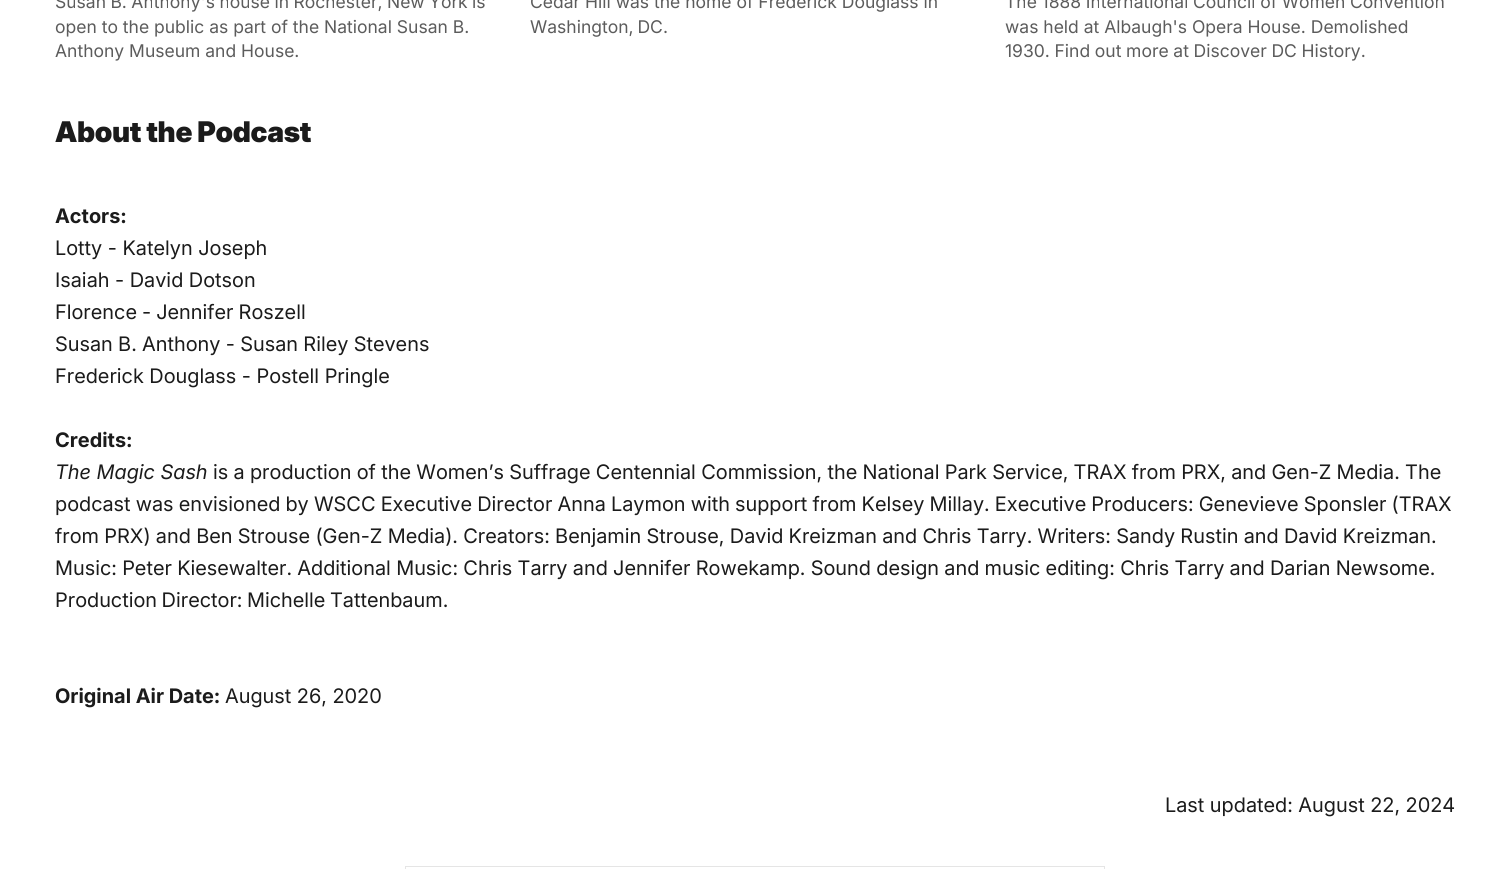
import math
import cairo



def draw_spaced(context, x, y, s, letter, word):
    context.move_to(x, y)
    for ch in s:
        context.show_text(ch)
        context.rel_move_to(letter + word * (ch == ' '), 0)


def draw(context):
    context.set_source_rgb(1, 1, 1)
    context.paint()
    context.rectangle(405.5, 866.5, 699, 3)
    context.set_source_rgb(229 / 255, 229 / 255, 229 / 255)
    context.set_line_width(1)
    context.stroke()
    context.select_font_face("Inter")
    context.set_font_size(17.5)
    context.set_source_rgb(92 / 255, 92 / 255, 92 / 255)
    draw_spaced(context, 55, 8, "Susan B. Anthony's house in Rochester, New York is", 0, -0.5)
    context.move_to(55, 33)
    context.show_text("open to the public as part of the National Susan B.")
    context.move_to(55, 57)
    context.show_text("Anthony Museum and House.")
    context.move_to(530, 8)
    context.show_text("Cedar Hill was the home of Frederick Douglass in")
    draw_spaced(context, 530, 33, "Washington, DC.", 0, -1)
    draw_spaced(context, 1005, 8, "The 1888 International Council of Women Convention", 0, -0.25)
    context.move_to(1005, 33)
    context.show_text("was held at Albaugh's Opera House. Demolished")
    draw_spaced(context, 1005, 57, "1930. Find out more at Discover DC History.", 0, -0.25)
    context.select_font_face("Inter Black")
    context.set_font_size(28.5)
    context.set_source_rgb(27 / 255, 27 / 255, 27 / 255)
    draw_spaced(context, 55, 142, "About the Podcast", -0.3, 0)
    context.select_font_face("Inter", cairo.FontSlant.NORMAL, cairo.FontWeight.BOLD)
    context.set_font_size(20)
    context.move_to(55, 223)
    context.show_text("Actors:")
    context.select_font_face("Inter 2")
    context.move_to(55, 255)
    context.show_text("Lotty - Katelyn Joseph")
    context.move_to(55, 287)
    context.show_text("Isaiah - David Dotson")
    draw_spaced(context, 55, 319, "Florence - Jennifer Roszell", 0, -0.5)
    draw_spaced(context, 55, 351, "Susan B. Anthony - Susan Riley Stevens", 0, -0.25)
    context.move_to(55, 383)
    context.show_text("Frederick Douglass - Postell Pringle")
    context.select_font_face("Inter", cairo.FontSlant.NORMAL, cairo.FontWeight.BOLD)
    context.move_to(55, 447)
    context.show_text("Credits:")
    context.select_font_face("Inter", cairo.FontSlant.ITALIC)
    context.move_to(55, 479)
    context.show_text("The Magic Sash")
    context.select_font_face("Inter 2")
    draw_spaced(context, 213, 479, "is a production of the Women’s Suffrage Centennial Commission, the National Park Service, TRAX from PRX, and Gen-Z Media. The", 0, -0.25)
    draw_spaced(context, 55, 511, "podcast was envisioned by WSCC Executive Director Anna Laymon with support from Kelsey Millay. Executive Producers: Genevieve Sponsler (TRAX", 0, -0.4)
    draw_spaced(context, 55, 543, "from PRX) and Ben Strouse (Gen-Z Media). Creators: Benjamin Strouse, David Kreizman and Chris Tarry. Writers: Sandy Rustin and David Kreizman.", 0, -0.25)
    draw_spaced(context, 55, 575, "Music: Peter Kiesewalter. Additional Music: Chris Tarry and Jennifer Rowekamp. Sound design and music editing: Chris Tarry and Darian Newsome.", 0, -0.25)
    draw_spaced(context, 55, 607, "Production Director: Michelle Tattenbaum.", 0, -1)
    context.select_font_face("Inter", cairo.FontSlant.NORMAL, cairo.FontWeight.BOLD)
    context.move_to(55, 703)
    context.show_text("Original Air Date:")
    context.select_font_face("Inter 2")
    context.move_to(225, 703)
    context.show_text("August 26, 2020")
    context.move_to(1165, 812)
    context.show_text("Last updated: August 22, 2024")


surface = cairo.ImageSurface(cairo.Format.RGB24, 1509, 869)
context = cairo.Context(surface)
options = cairo.FontOptions()
options.set_hint_metrics(cairo.HintMetrics.OFF)
options.set_hint_style(cairo.HintStyle.NONE)
context.set_font_options(options)
context.set_miter_limit(4)
draw(context)
surface.write_to_png("out.png")
